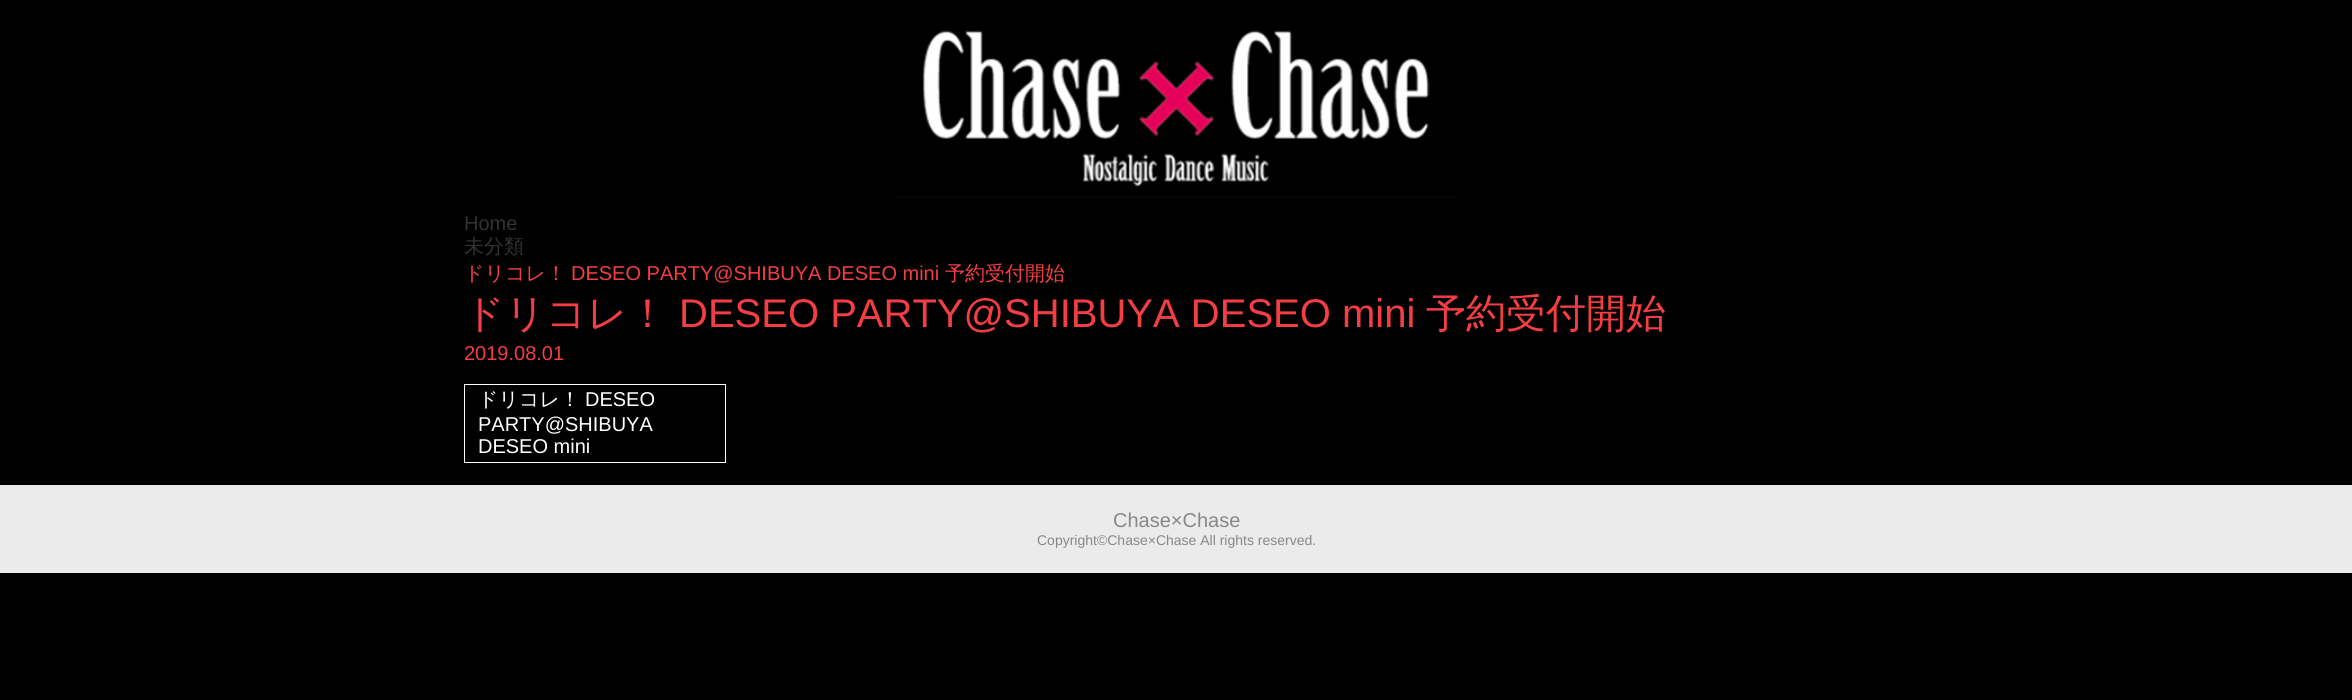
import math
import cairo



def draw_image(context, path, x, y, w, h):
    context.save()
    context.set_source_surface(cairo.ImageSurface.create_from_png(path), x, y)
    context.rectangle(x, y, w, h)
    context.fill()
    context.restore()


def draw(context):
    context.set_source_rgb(0, 0, 0)
    context.paint()
    draw_image(context, "images/1.png", 895, 30, 562, 168)
    context.rectangle(464.5, 384.5, 261, 78)
    context.set_source_rgb(1, 1, 1)
    context.set_line_width(1)
    context.stroke()
    context.set_source_rgb(235 / 255, 235 / 255, 235 / 255)
    context.rectangle(0, 485, 2352, 88)
    context.fill()
    context.select_font_face("Liberation Sans")
    context.set_font_size(20)
    context.set_source_rgb(51 / 255, 51 / 255, 51 / 255)
    context.move_to(464, 230)
    context.show_text("Home")
    context.select_font_face("WenQuanYi Zen Hei Medium")
    context.move_to(464, 253)
    context.show_text("未分類")
    context.set_source_rgb(244 / 255, 62 / 255, 67 / 255)
    context.move_to(464, 280)
    context.show_text("ドリコレ！")
    context.select_font_face("Liberation Sans")
    context.move_to(571, 280)
    context.show_text("DESEO PARTY@SHIBUYA DESEO mini")
    context.select_font_face("WenQuanYi Zen Hei Medium")
    context.move_to(945, 280)
    context.show_text("予約受付開始")
    context.set_font_size(40)
    context.move_to(464, 327)
    context.show_text("ドリコレ！")
    context.select_font_face("Liberation Sans")
    context.move_to(679, 327)
    context.show_text("DESEO PARTY@SHIBUYA DESEO mini")
    context.select_font_face("WenQuanYi Zen Hei Medium")
    context.move_to(1426, 327)
    context.show_text("予約受付開始")
    context.select_font_face("Liberation Sans")
    context.set_font_size(20)
    context.move_to(464, 360)
    context.show_text("2019.08.01")
    context.select_font_face("WenQuanYi Zen Hei Medium")
    context.set_source_rgb(1, 1, 1)
    context.move_to(478, 406)
    context.show_text("ドリコレ！")
    context.select_font_face("Liberation Sans")
    context.move_to(585, 406)
    context.show_text("DESEO")
    context.move_to(478, 431)
    context.show_text("PARTY@SHIBUYA")
    context.move_to(478, 453)
    context.show_text("DESEO mini")
    context.set_source_rgb(136 / 255, 136 / 255, 136 / 255)
    context.move_to(1113, 527)
    context.show_text("Chase×Chase")
    context.set_font_size(14)
    context.move_to(1037, 545)
    context.show_text("Copyright©Chase×Chase All rights reserved.")


surface = cairo.ImageSurface(cairo.Format.RGB24, 2352, 700)
context = cairo.Context(surface)
options = cairo.FontOptions()
options.set_hint_metrics(cairo.HintMetrics.OFF)
options.set_hint_style(cairo.HintStyle.NONE)
context.set_font_options(options)
context.set_miter_limit(4)
draw(context)
surface.write_to_png("out.png")
